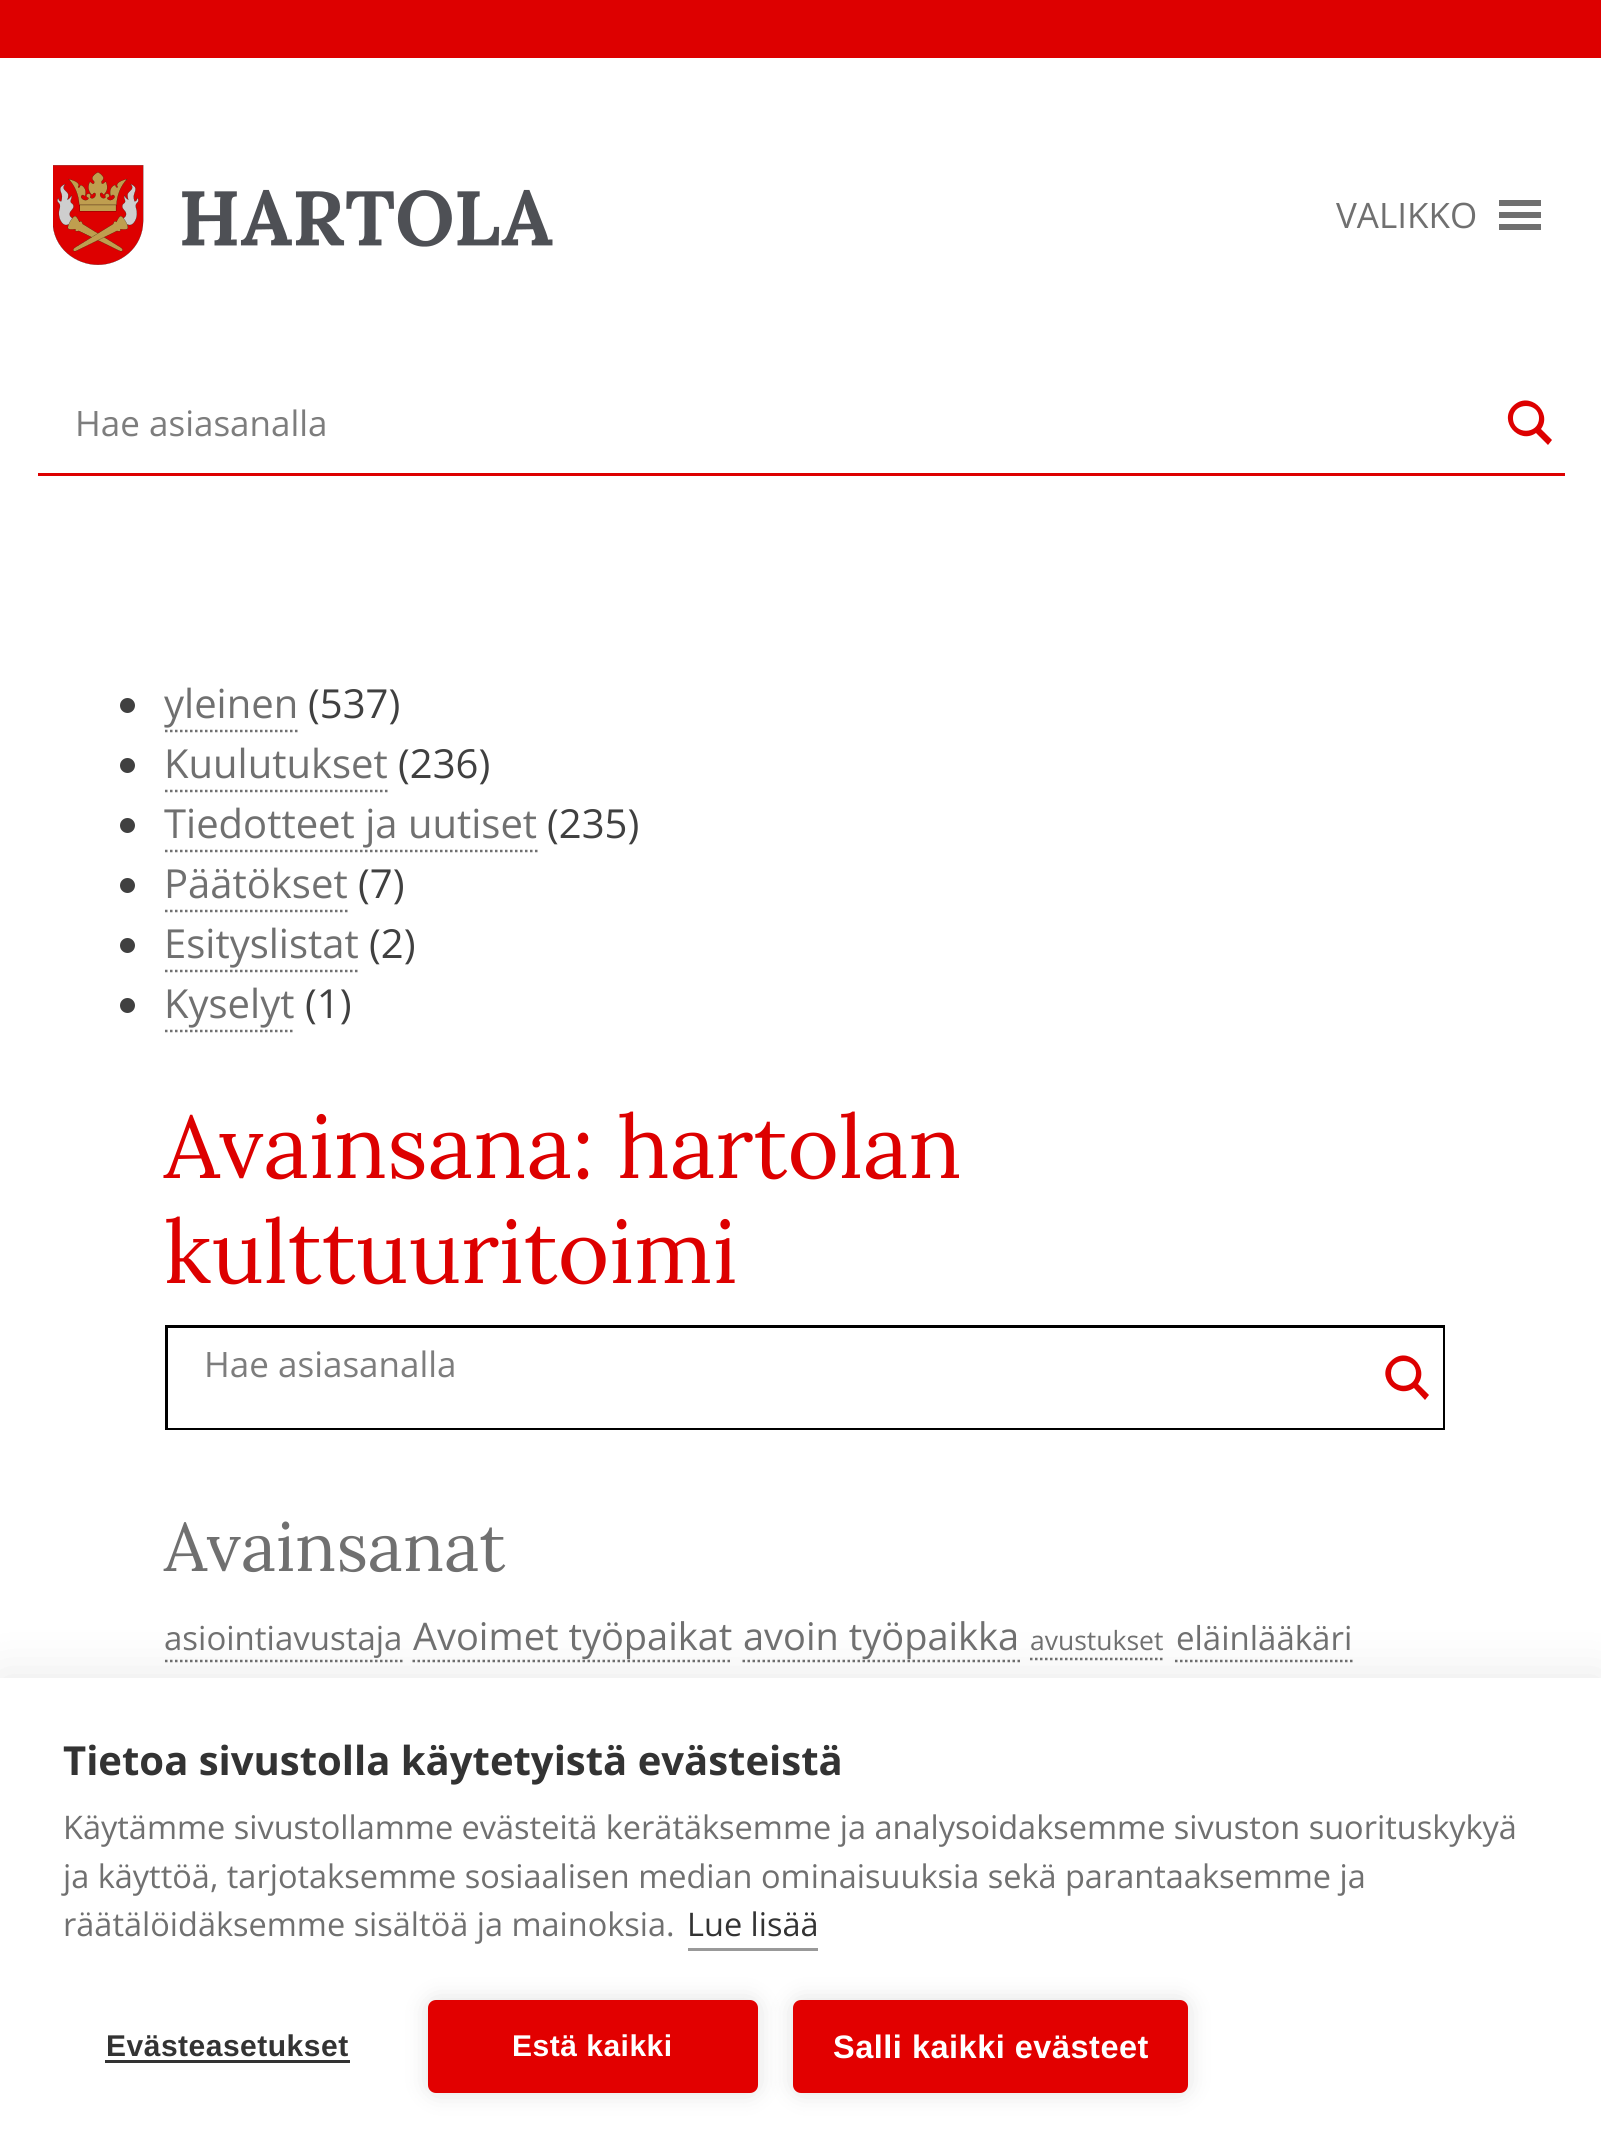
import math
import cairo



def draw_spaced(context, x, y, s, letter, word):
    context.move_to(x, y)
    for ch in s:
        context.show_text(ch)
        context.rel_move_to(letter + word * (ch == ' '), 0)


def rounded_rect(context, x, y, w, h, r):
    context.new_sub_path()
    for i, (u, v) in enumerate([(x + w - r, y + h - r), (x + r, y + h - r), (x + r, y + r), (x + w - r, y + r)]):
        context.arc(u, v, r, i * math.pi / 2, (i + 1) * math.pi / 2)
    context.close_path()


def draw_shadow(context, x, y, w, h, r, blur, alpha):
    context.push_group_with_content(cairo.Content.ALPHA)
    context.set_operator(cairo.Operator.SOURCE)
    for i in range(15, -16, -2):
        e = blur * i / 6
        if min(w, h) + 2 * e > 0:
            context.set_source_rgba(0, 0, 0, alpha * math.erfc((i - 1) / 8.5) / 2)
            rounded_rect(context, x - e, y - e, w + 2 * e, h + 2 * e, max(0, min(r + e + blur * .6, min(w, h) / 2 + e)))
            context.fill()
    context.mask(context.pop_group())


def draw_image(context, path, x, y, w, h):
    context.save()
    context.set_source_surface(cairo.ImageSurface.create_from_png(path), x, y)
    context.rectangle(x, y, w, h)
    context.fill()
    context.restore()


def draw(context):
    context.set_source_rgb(1, 1, 1)
    context.paint()
    context.set_source_rgb(221 / 255, 0, 0)
    context.rectangle(0, 0, 1601, 58)
    context.fill()
    draw_image(context, "images/1.png", 53, 165, 500, 100)
    context.set_source_rgb(112 / 255, 112 / 255, 112 / 255)
    context.new_path()
    context.move_to(1499, 230)
    context.line_to(1541, 230)
    context.line_to(1541, 224)
    context.line_to(1499, 224)
    context.close_path()
    context.move_to(1499, 200)
    context.line_to(1499, 206)
    context.line_to(1541, 206)
    context.line_to(1541, 200)
    context.close_path()
    context.move_to(1499, 218)
    context.line_to(1541, 218)
    context.line_to(1541, 212)
    context.line_to(1499, 212)
    context.close_path()
    context.fill()
    context.set_source_rgb(221 / 255, 0, 0)
    context.rectangle(38, 473, 1527, 3)
    context.fill()
    context.new_path()
    context.move_to(1552, 440)
    context.line_to(1541, 429)
    context.curve_to(1553, 412, 1529, 390, 1513, 406)
    context.curve_to(1498, 421, 1519, 445, 1536, 433)
    context.line_to(1548, 445)
    context.close_path()
    context.move_to(1513, 418)
    context.curve_to(1513, 402, 1539, 402, 1539, 418)
    context.curve_to(1539, 435, 1513, 435, 1513, 418)
    context.close_path()
    context.fill()
    context.set_source_rgb(64 / 255, 64 / 255, 64 / 255)
    context.arc(127.5, 705.5, 7.5, 0, 2 * math.pi)
    context.fill()
    context.new_path()
    context.move_to(165, 731)
    context.line_to(297.5, 731)
    context.set_source_rgb(112 / 255, 112 / 255, 112 / 255)
    context.set_line_width(2.5)
    context.set_dash([2.5, 2.5])
    context.stroke()
    context.set_source_rgb(64 / 255, 64 / 255, 64 / 255)
    context.arc(127.5, 765.5, 7.5, 0, 2 * math.pi)
    context.fill()
    context.new_path()
    context.move_to(165, 791)
    context.line_to(387.5, 791)
    context.set_source_rgb(112 / 255, 112 / 255, 112 / 255)
    context.stroke()
    context.set_source_rgb(64 / 255, 64 / 255, 64 / 255)
    context.arc(127.5, 825.5, 7.5, 0, 2 * math.pi)
    context.fill()
    context.new_path()
    context.move_to(165, 851)
    context.line_to(537.5, 851)
    context.set_source_rgb(112 / 255, 112 / 255, 112 / 255)
    context.stroke()
    context.set_source_rgb(64 / 255, 64 / 255, 64 / 255)
    context.arc(127.5, 885.5, 7.5, 0, 2 * math.pi)
    context.fill()
    context.new_path()
    context.move_to(165, 911)
    context.line_to(347.5, 911)
    context.set_source_rgb(112 / 255, 112 / 255, 112 / 255)
    context.stroke()
    context.set_source_rgb(64 / 255, 64 / 255, 64 / 255)
    context.arc(127.5, 945.5, 7.5, 0, 2 * math.pi)
    context.fill()
    context.new_path()
    context.move_to(165, 971)
    context.line_to(357.5, 971)
    context.set_source_rgb(112 / 255, 112 / 255, 112 / 255)
    context.stroke()
    context.set_source_rgb(64 / 255, 64 / 255, 64 / 255)
    context.arc(127.5, 1005.5, 7.5, 0, 2 * math.pi)
    context.fill()
    context.new_path()
    context.move_to(165, 1031)
    context.line_to(295, 1031)
    context.set_source_rgb(112 / 255, 112 / 255, 112 / 255)
    context.stroke()
    context.rectangle(166.5, 1326.5, 1277, 102)
    context.set_source_rgb(0, 0, 0)
    context.set_line_width(3)
    context.set_dash([])
    context.stroke()
    context.set_source_rgb(1, 1, 1)
    context.rectangle(168, 1328, 1275, 100)
    context.fill()
    context.set_source_rgb(221 / 255, 0, 0)
    context.new_path()
    context.move_to(1429, 1395)
    context.line_to(1418, 1384)
    context.curve_to(1430, 1367, 1407, 1345, 1391, 1361)
    context.curve_to(1375, 1376, 1396, 1400, 1414, 1388)
    context.line_to(1425, 1400)
    context.close_path()
    context.move_to(1391, 1373)
    context.curve_to(1391, 1357, 1416, 1357, 1416, 1373)
    context.curve_to(1416, 1390, 1391, 1390, 1391, 1373)
    context.close_path()
    context.fill()
    context.new_path()
    context.move_to(165, 1661)
    context.line_to(402.5, 1661)
    context.set_source_rgb(112 / 255, 112 / 255, 112 / 255)
    context.set_line_width(2.5)
    context.set_dash([2.5, 2.5])
    context.stroke()
    context.new_path()
    context.move_to(412.5, 1661)
    context.line_to(732.5, 1661)
    context.stroke()
    context.new_path()
    context.move_to(742.5, 1661)
    context.line_to(1020, 1661)
    context.stroke()
    context.new_path()
    context.move_to(1030, 1659)
    context.line_to(1165, 1659)
    context.stroke()
    context.new_path()
    context.move_to(1175, 1661)
    context.line_to(1352.5, 1661)
    context.stroke()
    context.set_source_rgb(0, 0, 0)
    draw_shadow(context, 0, 1678, 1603, 477, 0, 25, 0.1)
    context.set_source_rgb(1, 1, 1)
    context.rectangle(0, 1678, 1601, 477)
    context.fill()
    context.set_source_rgb(153 / 255, 153 / 255, 153 / 255)
    context.rectangle(688, 1948, 130, 3)
    context.fill()
    context.set_source_rgb(51 / 255, 51 / 255, 51 / 255)
    context.rectangle(105, 2060, 245, 3)
    context.fill()
    context.set_source_rgb(0, 0, 0)
    draw_shadow(context, 428, 2000, 330, 93, 8, 12.5, 0.12)
    context.set_source_rgb(226 / 255, 0, 0)
    rounded_rect(context, 428, 2000, 330, 93, 8)
    context.fill()
    context.set_source_rgb(0, 0, 0)
    draw_shadow(context, 793, 2000, 395, 93, 8, 12.5, 0.12)
    context.set_source_rgb(226 / 255, 0, 0)
    rounded_rect(context, 793, 2000, 395, 93, 8)
    context.fill()
    context.select_font_face("Open Sans")
    context.set_font_size(35)
    context.set_source_rgb(112 / 255, 112 / 255, 112 / 255)
    context.move_to(1336, 228)
    context.show_text("VALIKKO")
    context.set_source_rgb(125 / 255, 125 / 255, 125 / 255)
    context.move_to(75, 436)
    context.show_text("Hae asiasanalla")
    context.set_font_size(40)
    context.set_source_rgb(112 / 255, 112 / 255, 112 / 255)
    context.move_to(164, 718)
    context.show_text("yleinen")
    context.set_source_rgb(64 / 255, 64 / 255, 64 / 255)
    context.move_to(308, 718)
    context.show_text("(537)")
    context.set_source_rgb(112 / 255, 112 / 255, 112 / 255)
    context.move_to(164, 778)
    context.show_text("Kuulutukset")
    context.set_source_rgb(64 / 255, 64 / 255, 64 / 255)
    context.move_to(398, 778)
    context.show_text("(236)")
    context.set_source_rgb(112 / 255, 112 / 255, 112 / 255)
    context.move_to(164, 838)
    context.show_text("Tiedotteet ja uutiset")
    context.set_source_rgb(64 / 255, 64 / 255, 64 / 255)
    context.move_to(547, 838)
    context.show_text("(235)")
    context.set_source_rgb(112 / 255, 112 / 255, 112 / 255)
    context.move_to(164, 898)
    context.show_text("Päätökset")
    context.set_source_rgb(64 / 255, 64 / 255, 64 / 255)
    context.move_to(358, 898)
    context.show_text("(7)")
    context.set_source_rgb(112 / 255, 112 / 255, 112 / 255)
    context.move_to(164, 958)
    context.show_text("Esityslistat")
    context.set_source_rgb(64 / 255, 64 / 255, 64 / 255)
    context.move_to(369, 958)
    context.show_text("(2)")
    context.set_source_rgb(112 / 255, 112 / 255, 112 / 255)
    context.move_to(164, 1018)
    context.show_text("Kyselyt")
    context.set_source_rgb(64 / 255, 64 / 255, 64 / 255)
    context.move_to(305, 1018)
    context.show_text("(1)")
    context.select_font_face("Lora")
    context.set_font_size(88)
    context.set_source_rgb(221 / 255, 0, 0)
    context.move_to(164, 1178)
    context.show_text("Avainsana: hartolan")
    context.move_to(164, 1283)
    context.show_text("kulttuuritoimi")
    context.select_font_face("Open Sans")
    context.set_font_size(35)
    context.set_source_rgb(125 / 255, 125 / 255, 125 / 255)
    context.move_to(204, 1377)
    context.show_text("Hae asiasanalla")
    context.select_font_face("Lora")
    context.set_font_size(68)
    context.set_source_rgb(112 / 255, 112 / 255, 112 / 255)
    context.move_to(164, 1571)
    context.show_text("Avainsanat")
    context.select_font_face("Open Sans")
    context.set_font_size(33)
    context.move_to(164, 1650)
    context.show_text("asiointiavustaja")
    context.set_font_size(38)
    context.move_to(413, 1650)
    context.show_text("Avoimet työpaikat")
    context.move_to(743, 1650)
    context.show_text("avoin työpaikka")
    context.set_font_size(26.5)
    context.move_to(1030, 1650)
    context.show_text("avustukset")
    context.set_font_size(33)
    context.move_to(1176, 1650)
    context.show_text("eläinlääkäri")
    context.select_font_face("Open Sans", cairo.FontSlant.NORMAL, cairo.FontWeight.BOLD)
    context.set_font_size(40)
    context.set_source_rgb(51 / 255, 51 / 255, 51 / 255)
    context.move_to(63, 1775)
    context.show_text("Tietoa sivustolla käytetyistä evästeistä")
    context.select_font_face("Open Sans")
    context.set_font_size(32.5)
    context.set_source_rgb(112 / 255, 112 / 255, 112 / 255)
    context.move_to(63, 1839)
    context.show_text("Käytämme sivustollamme evästeitä kerätäksemme ja analysoidaksemme sivuston suorituskykyä")
    context.move_to(63, 1888)
    context.show_text("ja käyttöä, tarjotaksemme sosiaalisen median ominaisuuksia sekä parantaaksemme ja")
    context.move_to(63, 1936)
    context.show_text("räätälöidäksemme sisältöä ja mainoksia.")
    context.set_source_rgb(51 / 255, 51 / 255, 51 / 255)
    context.move_to(687, 1936)
    context.show_text("Lue lisää")
    context.select_font_face("Liberation Sans", cairo.FontSlant.NORMAL, cairo.FontWeight.BOLD)
    context.set_font_size(30)
    draw_spaced(context, 106, 2056, "Evästeasetukset", 0.5, 0)
    context.set_source_rgb(1, 1, 1)
    draw_spaced(context, 512, 2056, "Estä kaikki", 0.5, 0)
    context.set_font_size(32.5)
    draw_spaced(context, 833, 2058, "Salli kaikki evästeet", 0.5, 0)


surface = cairo.ImageSurface(cairo.Format.RGB24, 1601, 2155)
context = cairo.Context(surface)
options = cairo.FontOptions()
options.set_hint_metrics(cairo.HintMetrics.OFF)
options.set_hint_style(cairo.HintStyle.NONE)
context.set_font_options(options)
context.set_miter_limit(4)
draw(context)
surface.write_to_png("out.png")
